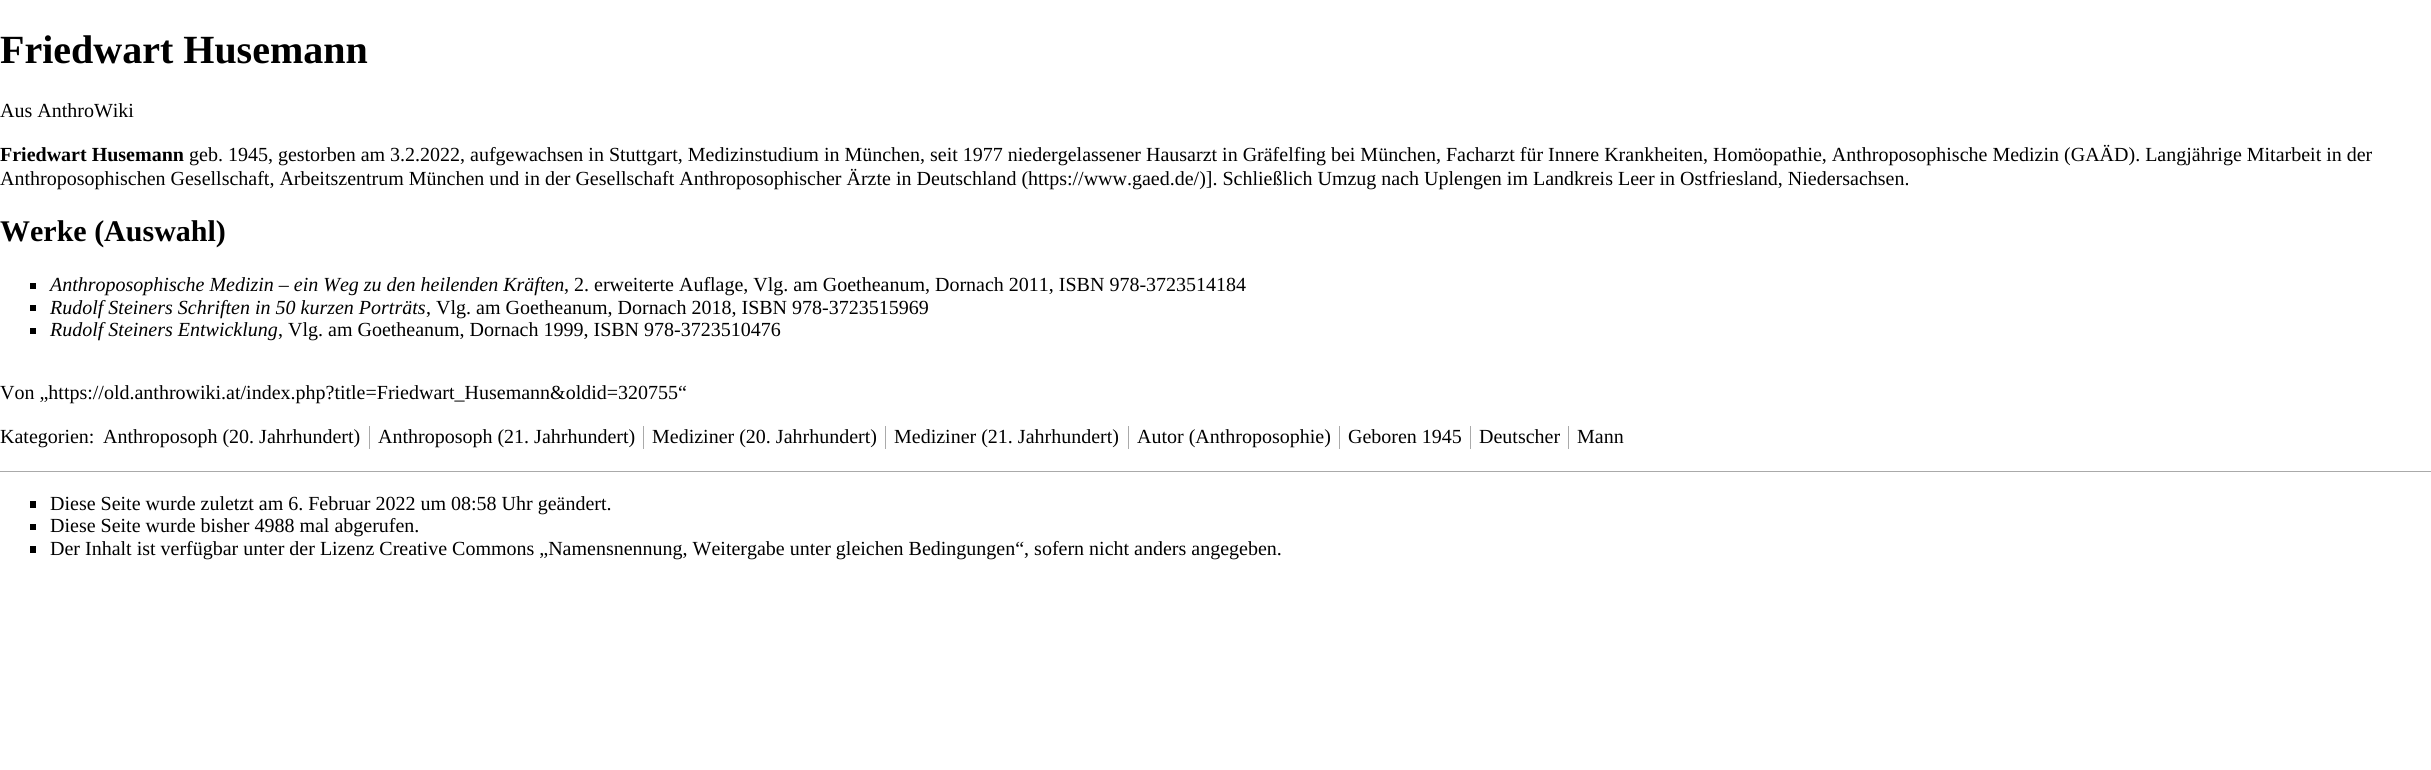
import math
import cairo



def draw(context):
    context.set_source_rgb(1, 1, 1)
    context.paint()
    context.set_source_rgb(0, 0, 0)
    context.rectangle(30, 283, 6, 6)
    context.fill()
    context.rectangle(30, 305, 6, 6)
    context.fill()
    context.rectangle(30, 328, 6, 6)
    context.fill()
    context.set_source_rgb(170 / 255, 170 / 255, 170 / 255)
    context.rectangle(369, 426, 1, 23)
    context.fill()
    context.rectangle(643, 426, 1, 23)
    context.fill()
    context.rectangle(885, 426, 1, 23)
    context.fill()
    context.rectangle(1128, 426, 1, 23)
    context.fill()
    context.rectangle(1339, 426, 1, 23)
    context.fill()
    context.rectangle(1470, 426, 1, 23)
    context.fill()
    context.rectangle(1568, 426, 1, 23)
    context.fill()
    context.rectangle(0, 471, 2431, 1)
    context.fill()
    context.set_source_rgb(0, 0, 0)
    context.rectangle(30, 501, 6, 7)
    context.fill()
    context.rectangle(30, 524, 6, 6)
    context.fill()
    context.rectangle(30, 546, 6, 7)
    context.fill()
    context.select_font_face("Liberation Serif", cairo.FontSlant.NORMAL, cairo.FontWeight.BOLD)
    context.set_font_size(40)
    context.move_to(0, 63)
    context.show_text("Friedwart Husemann")
    context.select_font_face("Liberation Serif")
    context.set_font_size(20)
    context.move_to(0, 117)
    context.show_text("Aus AnthroWiki")
    context.select_font_face("Liberation Serif", cairo.FontSlant.NORMAL, cairo.FontWeight.BOLD)
    context.move_to(0, 161)
    context.show_text("Friedwart Husemann")
    context.select_font_face("Liberation Serif")
    context.move_to(189, 161)
    context.show_text("geb. 1945, gestorben am 3.2.2022, aufgewachsen in Stuttgart, Medizinstudium in München, seit 1977 niedergelassener Hausarzt in Gräfelfing bei München, Facharzt für Innere Krankheiten, Homöopathie, Anthroposophische Medizin (GAÄD). Langjährige Mitarbeit in der")
    context.move_to(0, 185)
    context.show_text("Anthroposophischen Gesellschaft, Arbeitszentrum München und in der Gesellschaft Anthroposophischer Ärzte in Deutschland (https://www.gaed.de/)]. Schließlich Umzug nach Uplengen im Landkreis Leer in Ostfriesland, Niedersachsen.")
    context.select_font_face("Liberation Serif", cairo.FontSlant.NORMAL, cairo.FontWeight.BOLD)
    context.set_font_size(30)
    context.move_to(0, 241)
    context.show_text("Werke (Auswahl)")
    context.select_font_face("Liberation Serif", cairo.FontSlant.ITALIC)
    context.set_font_size(20)
    context.move_to(50, 291)
    context.show_text("Anthroposophische Medizin – ein Weg zu den heilenden Kräften")
    context.select_font_face("Liberation Serif")
    context.move_to(564, 291)
    context.show_text(", 2. erweiterte Auflage, Vlg. am Goetheanum, Dornach 2011, ISBN 978-3723514184")
    context.select_font_face("Liberation Serif", cairo.FontSlant.ITALIC)
    context.move_to(50, 314)
    context.show_text("Rudolf Steiners Schriften in 50 kurzen Porträts")
    context.select_font_face("Liberation Serif")
    context.move_to(426, 314)
    context.show_text(", Vlg. am Goetheanum, Dornach 2018, ISBN 978-3723515969")
    context.select_font_face("Liberation Serif", cairo.FontSlant.ITALIC)
    context.move_to(50, 336)
    context.show_text("Rudolf Steiners Entwicklung")
    context.select_font_face("Liberation Serif")
    context.move_to(278, 336)
    context.show_text(", Vlg. am Goetheanum, Dornach 1999, ISBN 978-3723510476")
    context.move_to(0, 399)
    context.show_text("Von „https://old.anthrowiki.at/index.php?title=Friedwart_Husemann&oldid=320755“")
    context.move_to(0, 443)
    context.show_text("Kategorien:")
    context.move_to(103, 443)
    context.show_text("Anthroposoph (20. Jahrhundert)")
    context.move_to(378, 443)
    context.show_text("Anthroposoph (21. Jahrhundert)")
    context.move_to(652, 443)
    context.show_text("Mediziner (20. Jahrhundert)")
    context.move_to(894, 443)
    context.show_text("Mediziner (21. Jahrhundert)")
    context.move_to(1137, 443)
    context.show_text("Autor (Anthroposophie)")
    context.move_to(1348, 443)
    context.show_text("Geboren 1945")
    context.move_to(1479, 443)
    context.show_text("Deutscher")
    context.move_to(1577, 443)
    context.show_text("Mann")
    context.move_to(50, 510)
    context.show_text("Diese Seite wurde zuletzt am 6. Februar 2022 um 08:58 Uhr geändert.")
    context.move_to(50, 532)
    context.show_text("Diese Seite wurde bisher 4988 mal abgerufen.")
    context.move_to(50, 555)
    context.show_text("Der Inhalt ist verfügbar unter der Lizenz Creative Commons „Namensnennung, Weitergabe unter gleichen Bedingungen“, sofern nicht anders angegeben.")


surface = cairo.ImageSurface(cairo.Format.RGB24, 2431, 770)
context = cairo.Context(surface)
options = cairo.FontOptions()
options.set_hint_metrics(cairo.HintMetrics.OFF)
options.set_hint_style(cairo.HintStyle.NONE)
context.set_font_options(options)
context.set_miter_limit(4)
draw(context)
surface.write_to_png("out.png")
